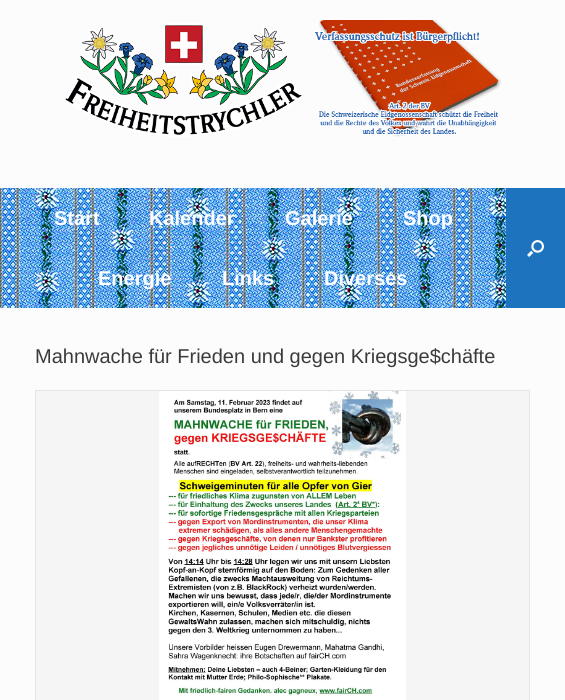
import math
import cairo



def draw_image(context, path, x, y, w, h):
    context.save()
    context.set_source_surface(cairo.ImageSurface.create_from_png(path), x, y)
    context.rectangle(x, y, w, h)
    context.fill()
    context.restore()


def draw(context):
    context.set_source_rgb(252 / 255, 252 / 255, 252 / 255)
    context.paint()
    draw_image(context, "images/1.png", 65, 20, 436, 117)
    draw_image(context, "images/2.png", 0, 188, 506, 120)
    context.set_source_rgb(30 / 255, 115 / 255, 190 / 255)
    context.rectangle(506, 188, 59, 120)
    context.fill()
    draw_image(context, "images/3.png", 527, 240, 17, 17)
    context.rectangle(35.5, 390.5, 494, 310)
    context.set_source_rgb(228 / 255, 228 / 255, 228 / 255)
    context.set_line_width(1)
    context.stroke()
    context.set_source_rgb(245 / 255, 245 / 255, 245 / 255)
    context.rectangle(36, 391, 493, 309)
    context.fill()
    draw_image(context, "images/4.png", 159, 391, 247, 309)
    context.select_font_face("Liberation Sans", cairo.FontSlant.NORMAL, cairo.FontWeight.BOLD)
    context.set_font_size(20)
    context.set_source_rgb(1, 1, 1)
    context.move_to(54, 225)
    context.show_text("Start")
    context.move_to(149, 225)
    context.show_text("Kalender")
    context.move_to(285, 225)
    context.show_text("Galerie")
    context.move_to(403, 225)
    context.show_text("Shop")
    context.move_to(98, 285)
    context.show_text("Energie")
    context.move_to(222, 285)
    context.show_text("Links")
    context.move_to(324, 285)
    context.show_text("Diverses")
    context.select_font_face("Liberation Sans")
    context.set_source_rgb(59 / 255, 59 / 255, 59 / 255)
    context.move_to(35, 363)
    context.show_text("Mahnwache für Frieden und gegen Kriegsge$chäfte")


surface = cairo.ImageSurface(cairo.Format.RGB24, 565, 700)
context = cairo.Context(surface)
options = cairo.FontOptions()
options.set_hint_metrics(cairo.HintMetrics.OFF)
options.set_hint_style(cairo.HintStyle.NONE)
context.set_font_options(options)
context.set_miter_limit(4)
draw(context)
surface.write_to_png("out.png")
